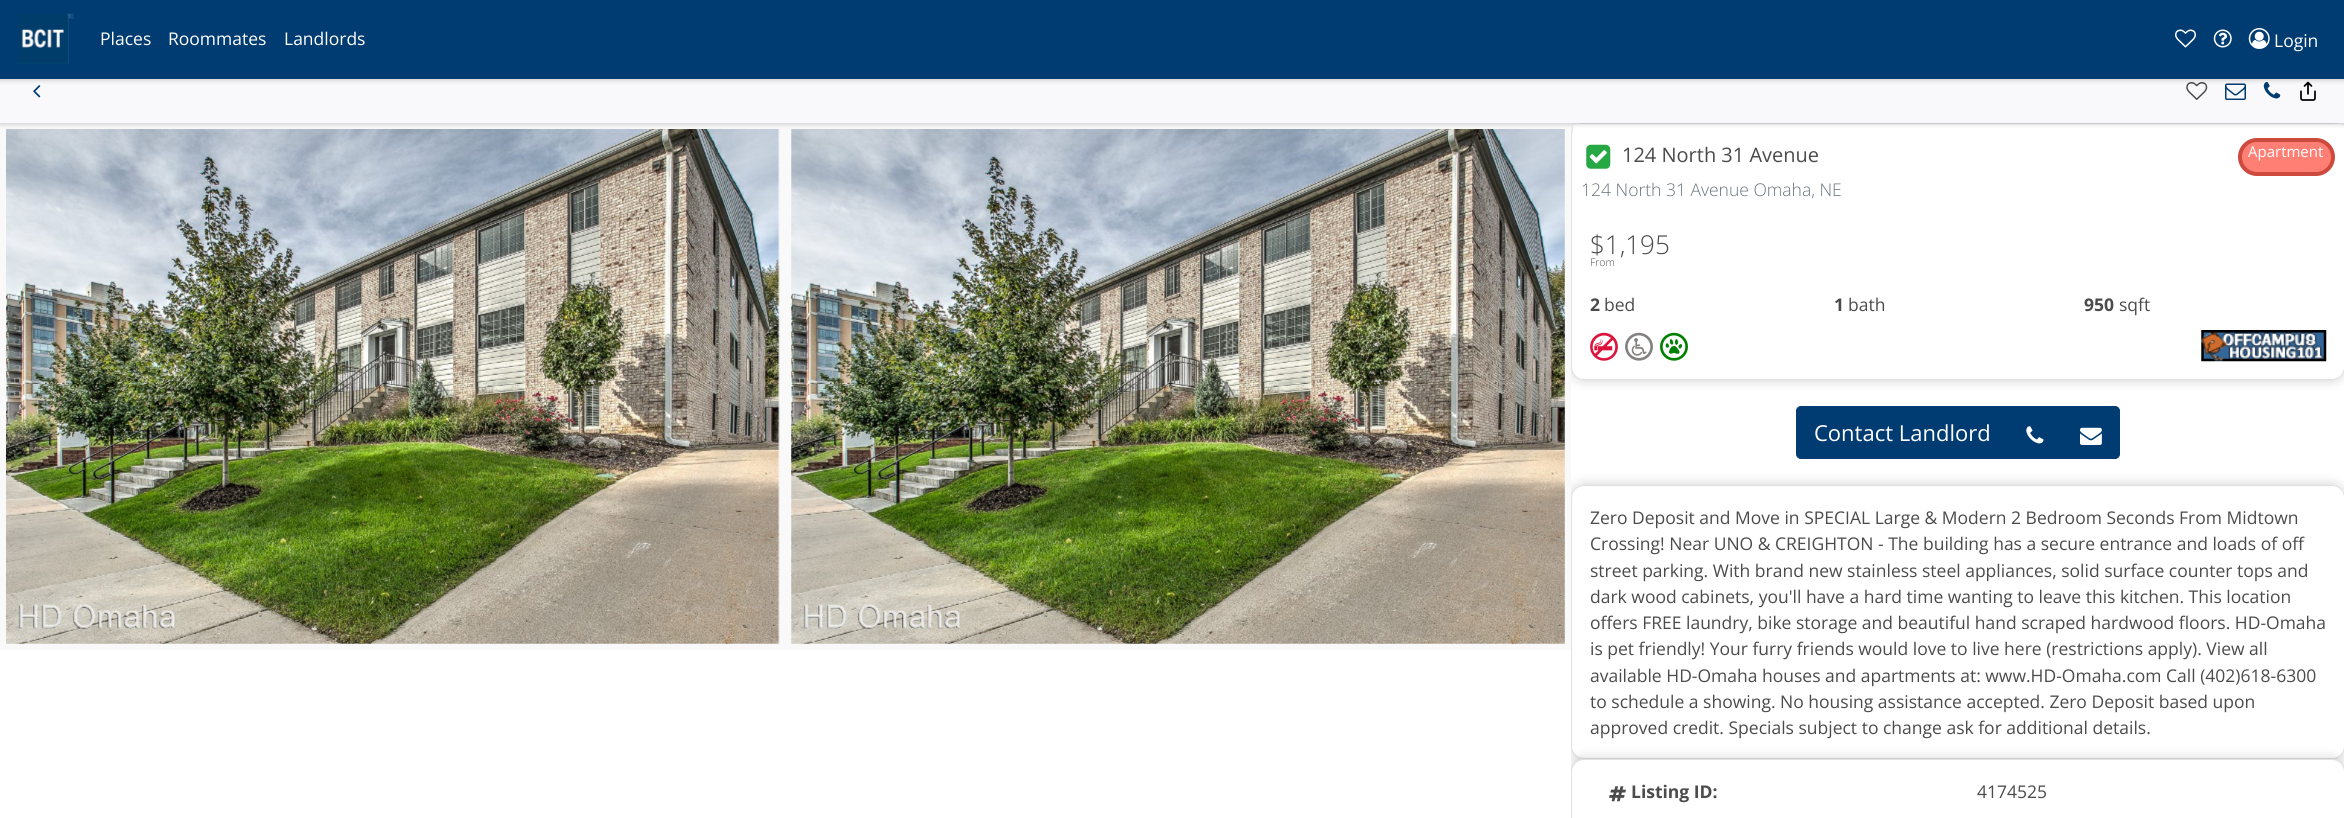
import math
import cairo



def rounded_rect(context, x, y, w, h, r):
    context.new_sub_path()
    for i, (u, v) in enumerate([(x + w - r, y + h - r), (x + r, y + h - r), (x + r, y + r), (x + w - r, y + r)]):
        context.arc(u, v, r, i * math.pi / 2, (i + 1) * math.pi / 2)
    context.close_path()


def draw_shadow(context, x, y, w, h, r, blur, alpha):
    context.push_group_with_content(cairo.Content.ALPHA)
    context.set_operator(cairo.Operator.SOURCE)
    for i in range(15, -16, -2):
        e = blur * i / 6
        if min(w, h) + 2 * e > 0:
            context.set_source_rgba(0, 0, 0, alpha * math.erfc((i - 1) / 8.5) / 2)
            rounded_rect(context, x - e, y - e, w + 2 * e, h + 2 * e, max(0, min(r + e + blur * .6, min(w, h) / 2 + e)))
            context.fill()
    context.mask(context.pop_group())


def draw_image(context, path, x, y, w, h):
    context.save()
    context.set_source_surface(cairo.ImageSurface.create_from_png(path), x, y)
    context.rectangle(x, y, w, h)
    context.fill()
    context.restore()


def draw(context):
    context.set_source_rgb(1, 1, 1)
    context.paint()
    context.set_source_rgb(249 / 255, 249 / 255, 249 / 255)
    context.rectangle(0, 123, 1571, 527)
    context.fill()
    draw_image(context, "images/10.png", 6, 129, 774, 515)
    draw_image(context, "images/11.png", 791, 129, 774, 515)
    context.save()
    context.rectangle(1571, 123, 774, 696)
    context.clip()
    context.set_source_rgb(0, 0, 0)
    draw_shadow(context, 1571, 123, 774, 257, 13, 6, 0.2)
    context.restore()
    context.set_source_rgb(1, 1, 1)
    rounded_rect(context, 1571, 123, 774, 257, 13)
    context.fill()
    rounded_rect(context, 1571.5, 123.5, 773, 256, 12.5)
    context.set_source_rgba(0, 0, 0, 0.12)
    context.set_line_width(1)
    context.stroke()
    context.set_source_rgb(1, 1, 1)
    context.new_path()
    context.move_to(1576, 124)
    context.line_to(2341, 124)
    context.curve_to(2342.5, 124, 2344, 125.5, 2344, 127)
    context.line_to(2344, 211)
    context.line_to(1573, 211)
    context.line_to(1573, 127)
    context.curve_to(1573, 125.5, 1574.5, 124, 1576, 124)
    context.close_path()
    context.fill()
    context.set_source_rgb(0, 0, 0)
    draw_shadow(context, 0, 63, 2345, 61, 0, 2.5, 0.2)
    context.set_source_rgb(249 / 255, 249 / 255, 251 / 255)
    context.rectangle(0, 79, 2344, 44)
    context.fill()
    draw_image(context, "images/5.png", 33, 85, 8, 13)
    draw_image(context, "images/6.png", 2186, 82, 22, 18)
    draw_image(context, "images/7.png", 2225, 83, 21, 17)
    draw_image(context, "images/8.png", 2263, 82, 18, 17)
    draw_image(context, "images/9.png", 2300, 81, 16, 20)
    context.set_source_rgb(0, 0, 0)
    draw_shadow(context, 0, 1, 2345, 79, 0, 2.5, 0.2)
    context.set_source_rgb(0, 60 / 255, 113 / 255)
    context.rectangle(0, 0, 2344, 79)
    context.fill()
    draw_image(context, "images/1.png", 18, 13, 56, 51)
    draw_image(context, "images/2.png", 2175, 29, 21, 19)
    draw_image(context, "images/3.png", 2213, 29, 19, 19)
    draw_image(context, "images/4.png", 2248, 28, 22, 21)
    draw_image(context, "images/12.png", 1586, 144, 25, 25)
    context.set_source_rgb(1, 127 / 255, 116 / 255)
    rounded_rect(context, 2240, 140, 93, 34, 17)
    context.fill_preserve()
    context.set_source_rgb(205 / 255, 74 / 255, 63 / 255)
    context.set_line_width(4)
    context.stroke()
    draw_image(context, "images/13.png", 1590, 332, 28, 29)
    draw_image(context, "images/14.png", 1625, 332, 28, 29)
    draw_image(context, "images/15.png", 1660, 332, 28, 29)
    draw_image(context, "images/16.png", 2201, 330, 126, 32)
    context.set_source_rgb(0, 60 / 255, 113 / 255)
    context.new_path()
    context.move_to(1801, 406.5)
    context.line_to(2008.5, 406.5)
    context.line_to(2008.5, 458.5)
    context.line_to(1801, 458.5)
    context.curve_to(1798.5, 458.5, 1796.5, 456.5, 1796.5, 454)
    context.line_to(1796.5, 411)
    context.curve_to(1796.5, 408.5, 1798.5, 406.5, 1801, 406.5)
    context.close_path()
    context.fill_preserve()
    context.set_line_width(1)
    context.stroke()
    context.rectangle(2009, 406, 52, 53)
    context.fill()
    draw_image(context, "images/17.png", 2026, 426, 18, 18)
    context.new_path()
    context.move_to(2061.5, 406.5)
    context.line_to(2115, 406.5)
    context.curve_to(2117.5, 406.5, 2119.5, 408.5, 2119.5, 411)
    context.line_to(2119.5, 454)
    context.curve_to(2119.5, 456.5, 2117.5, 458.5, 2115, 458.5)
    context.line_to(2061.5, 458.5)
    context.close_path()
    context.fill_preserve()
    context.stroke()
    draw_image(context, "images/18.png", 2080, 427, 22, 18)
    context.save()
    context.rectangle(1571, 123, 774, 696)
    context.clip()
    context.set_source_rgb(0, 0, 0)
    draw_shadow(context, 1571, 485, 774, 274, 13, 6, 0.2)
    context.restore()
    context.set_source_rgb(1, 1, 1)
    rounded_rect(context, 1571, 485, 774, 274, 13)
    context.fill()
    rounded_rect(context, 1571.5, 485.5, 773, 273, 12.5)
    context.set_source_rgba(0, 0, 0, 0.12)
    context.stroke()
    context.save()
    context.rectangle(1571, 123, 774, 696)
    context.clip()
    context.set_source_rgb(0, 0, 0)
    draw_shadow(context, 1571, 759, 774, 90, 13, 6, 0.2)
    context.restore()
    context.set_source_rgb(1, 1, 1)
    context.new_path()
    context.move_to(1584, 759)
    context.line_to(2332, 759)
    context.curve_to(2339, 759, 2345, 765, 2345, 772)
    context.line_to(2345, 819)
    context.line_to(1571, 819)
    context.line_to(1571, 772)
    context.curve_to(1571, 765, 1577, 759, 1584, 759)
    context.close_path()
    context.fill()
    rounded_rect(context, 1571.5, 759.5, 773, 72, 12.5)
    context.set_source_rgba(0, 0, 0, 0.12)
    context.stroke()
    draw_image(context, "images/19.png", 1609, 786, 17, 16)
    context.select_font_face("Open Sans")
    context.set_font_size(17.5)
    context.set_source_rgb(1, 1, 1)
    context.move_to(100, 45)
    context.show_text("Places")
    context.move_to(168, 45)
    context.show_text("Roommates")
    context.move_to(284, 45)
    context.show_text("Landlords")
    context.move_to(2274, 47)
    context.show_text("Login")
    context.set_font_size(20)
    context.set_source_rgb(75 / 255, 75 / 255, 75 / 255)
    context.move_to(1622, 162)
    context.show_text("124 North 31 Avenue")
    context.set_font_size(15)
    context.set_source_rgb(1, 1, 1)
    context.move_to(2248, 157)
    context.show_text("Apartment")
    context.select_font_face("Open Sans Light")
    context.set_font_size(17.5)
    context.set_source_rgb(108 / 255, 117 / 255, 125 / 255)
    context.move_to(1581, 196)
    context.show_text("124 North 31 Avenue Omaha, NE")
    context.set_font_size(26)
    context.set_source_rgb(75 / 255, 75 / 255, 75 / 255)
    context.move_to(1590, 254)
    context.show_text("$1,195")
    context.set_font_size(10.5)
    context.move_to(1590, 266)
    context.show_text("From")
    context.select_font_face("Open Sans", cairo.FontSlant.NORMAL, cairo.FontWeight.BOLD)
    context.set_font_size(17.5)
    context.move_to(1590, 311)
    context.show_text("2")
    context.select_font_face("Open Sans")
    context.move_to(1604, 311)
    context.show_text("bed")
    context.select_font_face("Open Sans", cairo.FontSlant.NORMAL, cairo.FontWeight.BOLD)
    context.move_to(1834, 311)
    context.show_text("1")
    context.select_font_face("Open Sans")
    context.move_to(1848, 311)
    context.show_text("bath")
    context.select_font_face("Open Sans", cairo.FontSlant.NORMAL, cairo.FontWeight.BOLD)
    context.move_to(2084, 311)
    context.show_text("950")
    context.select_font_face("Open Sans")
    context.move_to(2119, 311)
    context.show_text("sqft")
    context.set_font_size(22)
    context.set_source_rgb(1, 1, 1)
    context.move_to(1814, 441)
    context.show_text("Contact Landlord")
    context.set_font_size(17.5)
    context.set_source_rgb(75 / 255, 75 / 255, 75 / 255)
    context.move_to(1590, 524)
    context.show_text("Zero Deposit and Move in SPECIAL Large & Modern 2 Bedroom Seconds From Midtown")
    context.move_to(1590, 550)
    context.show_text("Crossing! Near UNO & CREIGHTON - The building has a secure entrance and loads of off")
    context.move_to(1590, 577)
    context.show_text("street parking. With brand new stainless steel appliances, solid surface counter tops and")
    context.move_to(1590, 603)
    context.show_text("dark wood cabinets, you'll have a hard time wanting to leave this kitchen. This location")
    context.move_to(1590, 629)
    context.show_text("offers FREE laundry, bike storage and beautiful hand scraped hardwood floors. HD-Omaha")
    context.move_to(1590, 655)
    context.show_text("is pet friendly! Your furry friends would love to live here (restrictions apply). View all")
    context.move_to(1590, 682)
    context.show_text("available HD-Omaha houses and apartments at: www.HD-Omaha.com Call (402)618-6300")
    context.move_to(1590, 708)
    context.show_text("to schedule a showing. No housing assistance accepted. Zero Deposit based upon")
    context.move_to(1590, 734)
    context.show_text("approved credit. Specials subject to change ask for additional details.")
    context.select_font_face("Open Sans", cairo.FontSlant.NORMAL, cairo.FontWeight.BOLD)
    context.move_to(1631, 798)
    context.show_text("Listing ID:")
    context.select_font_face("Open Sans")
    context.move_to(1977, 798)
    context.show_text("4174525")


surface = cairo.ImageSurface(cairo.Format.RGB24, 2344, 818)
context = cairo.Context(surface)
options = cairo.FontOptions()
options.set_hint_metrics(cairo.HintMetrics.OFF)
options.set_hint_style(cairo.HintStyle.NONE)
context.set_font_options(options)
context.set_miter_limit(4)
draw(context)
surface.write_to_png("out.png")
